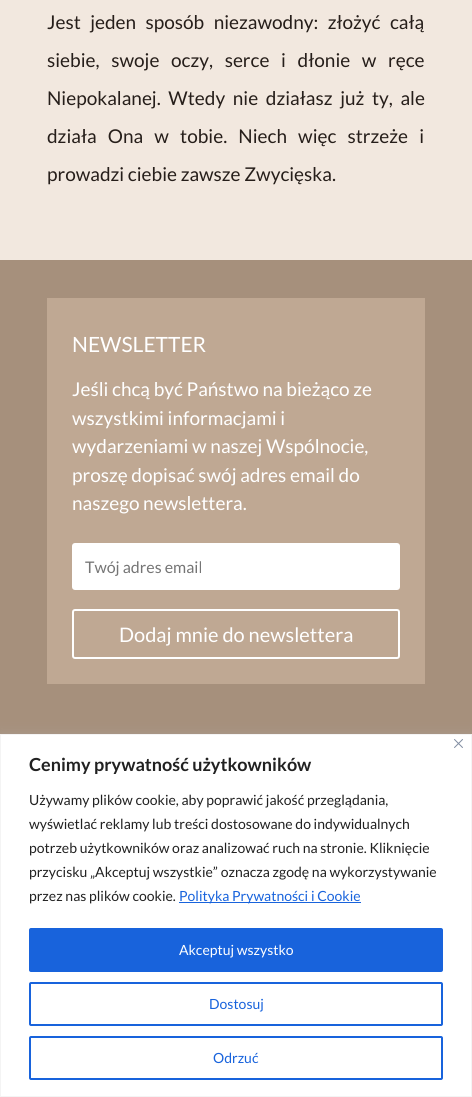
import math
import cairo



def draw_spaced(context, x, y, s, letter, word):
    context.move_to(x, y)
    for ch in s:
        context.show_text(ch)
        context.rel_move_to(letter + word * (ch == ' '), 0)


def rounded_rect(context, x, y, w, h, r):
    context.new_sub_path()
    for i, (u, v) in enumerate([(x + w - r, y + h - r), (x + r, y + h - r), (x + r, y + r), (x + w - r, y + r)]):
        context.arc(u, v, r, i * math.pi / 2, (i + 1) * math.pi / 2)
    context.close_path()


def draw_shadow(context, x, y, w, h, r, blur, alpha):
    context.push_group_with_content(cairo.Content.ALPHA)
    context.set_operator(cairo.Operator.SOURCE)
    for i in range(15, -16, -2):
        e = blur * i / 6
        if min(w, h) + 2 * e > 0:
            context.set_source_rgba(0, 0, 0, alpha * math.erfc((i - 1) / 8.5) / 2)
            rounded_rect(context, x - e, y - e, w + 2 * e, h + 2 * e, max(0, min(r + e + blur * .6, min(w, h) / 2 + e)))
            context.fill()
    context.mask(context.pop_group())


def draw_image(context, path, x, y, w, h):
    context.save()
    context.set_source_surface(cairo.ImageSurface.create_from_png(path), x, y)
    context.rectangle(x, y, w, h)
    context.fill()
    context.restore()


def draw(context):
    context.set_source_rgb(242 / 255, 232 / 255, 223 / 255)
    context.paint()
    context.set_source_rgb(166 / 255, 144 / 255, 124 / 255)
    context.rectangle(0, 260, 472, 474)
    context.fill()
    context.set_source_rgb(191 / 255, 168 / 255, 147 / 255)
    context.rectangle(47, 298, 378, 386)
    context.fill()
    context.set_source_rgb(1, 1, 1)
    rounded_rect(context, 72, 543, 328, 47, 3)
    context.fill()
    rounded_rect(context, 73, 610, 326, 48, 2)
    context.stroke()
    context.set_source_rgb(172 / 255, 171 / 255, 171 / 255)
    draw_shadow(context, 0, 733, 472, 363, 0, 5, 0.3)
    context.set_source_rgb(1, 1, 1)
    context.rectangle(0.5, 734.5, 471, 362)
    context.fill_preserve()
    context.set_source_rgb(244 / 255, 244 / 255, 244 / 255)
    context.set_line_width(1)
    context.stroke()
    draw_image(context, "images/1.png", 454, 739, 9, 9)
    context.set_source_rgb(24 / 255, 99 / 255, 220 / 255)
    context.rectangle(179, 902, 182, 1)
    context.fill()
    rounded_rect(context, 30, 929, 412, 42, 1)
    context.fill_preserve()
    context.set_line_width(2)
    context.stroke()
    rounded_rect(context, 30, 983, 412, 42, 1)
    context.stroke()
    rounded_rect(context, 30, 1037, 412, 42, 1)
    context.stroke()
    context.select_font_face("Lato")
    context.set_font_size(19)
    context.set_source_rgb(38 / 255, 30 / 255, 26 / 255)
    draw_spaced(context, 47, 29, "Jest jeden sposób niezawodny: złożyć całą", 0, 5.75)
    draw_spaced(context, 47, 67, "siebie, swoje oczy, serce i dłonie w ręce", 0, 8)
    draw_spaced(context, 47, 105, "Niepokalanej. Wtedy nie działasz już ty, ale", 0, 4)
    draw_spaced(context, 47, 143, "działa Ona w tobie. Niech więc strzeże i", 0, 7.5)
    context.move_to(47, 181)
    context.show_text("prowadzi ciebie zawsze Zwycięska.")
    context.set_font_size(21)
    context.set_source_rgb(1, 1, 1)
    context.move_to(72, 352)
    context.show_text("NEWSLETTER")
    context.set_font_size(19)
    context.move_to(72, 396)
    context.show_text("Jeśli chcą być Państwo na bieżąco ze")
    context.move_to(72, 425)
    context.show_text("wszystkimi informacjami i")
    context.move_to(72, 453)
    context.show_text("wydarzeniami w naszej Wspólnocie,")
    context.move_to(72, 482)
    context.show_text("proszę dopisać swój adres email do")
    context.move_to(72, 510)
    context.show_text("naszego newslettera.")
    context.set_font_size(16)
    context.set_source_rgb(117 / 255, 117 / 255, 117 / 255)
    context.move_to(85, 573)
    context.show_text("Twój adres email")
    context.set_font_size(20)
    context.set_source_rgb(1, 1, 1)
    context.move_to(119, 642)
    context.show_text("Dodaj mnie do newslettera")
    context.select_font_face("Lato", cairo.FontSlant.NORMAL, cairo.FontWeight.BOLD)
    context.set_font_size(18)
    context.set_source_rgb(33 / 255, 33 / 255, 33 / 255)
    context.move_to(29, 771)
    context.show_text("Cenimy prywatność użytkowników")
    context.select_font_face("Lato")
    context.set_font_size(14)
    context.move_to(29, 805)
    context.show_text("Używamy plików cookie, aby poprawić jakość przeglądania,")
    context.move_to(29, 829)
    context.show_text("wyświetlać reklamy lub treści dostosowane do indywidualnych")
    context.move_to(29, 853)
    context.show_text("potrzeb użytkowników oraz analizować ruch na stronie. Kliknięcie")
    context.move_to(29, 877)
    context.show_text("przycisku „Akceptuj wszystkie” oznacza zgodę na wykorzystywanie")
    context.move_to(29, 901)
    context.show_text("przez nas plików cookie.")
    context.set_source_rgb(24 / 255, 99 / 255, 220 / 255)
    context.move_to(179, 901)
    context.show_text("Polityka Prywatności i Cookie")
    context.set_source_rgb(1, 1, 1)
    context.move_to(179, 955)
    context.show_text("Akceptuj wszystko")
    context.set_source_rgb(24 / 255, 99 / 255, 220 / 255)
    context.move_to(209, 1009)
    context.show_text("Dostosuj")
    context.move_to(213, 1063)
    context.show_text("Odrzuć")


surface = cairo.ImageSurface(cairo.Format.RGB24, 472, 1097)
context = cairo.Context(surface)
options = cairo.FontOptions()
options.set_hint_metrics(cairo.HintMetrics.OFF)
options.set_hint_style(cairo.HintStyle.NONE)
context.set_font_options(options)
context.set_miter_limit(4)
draw(context)
surface.write_to_png("out.png")
